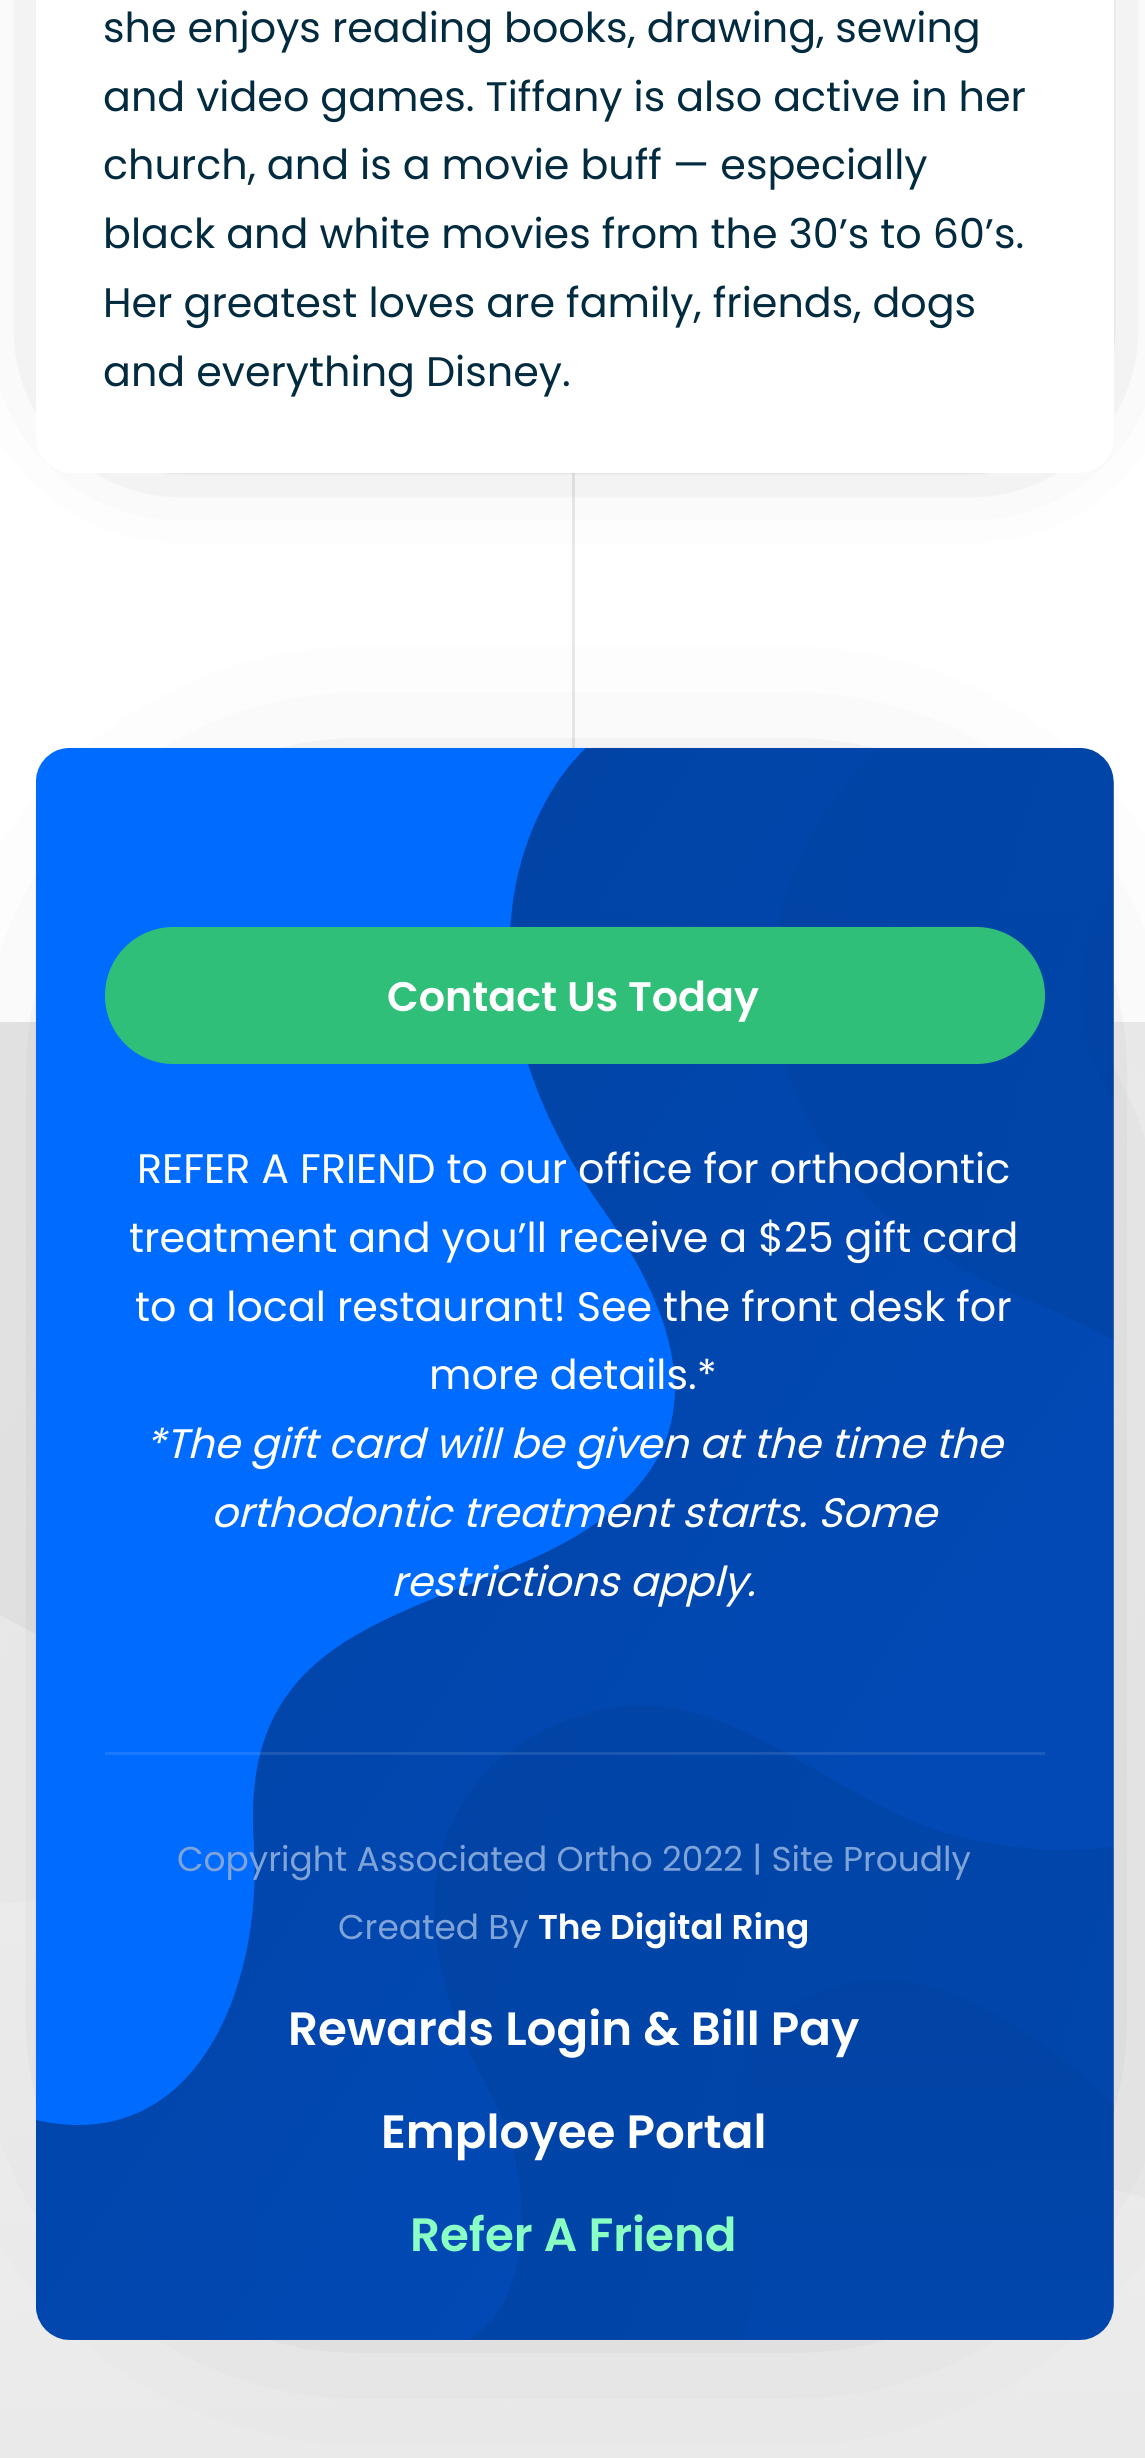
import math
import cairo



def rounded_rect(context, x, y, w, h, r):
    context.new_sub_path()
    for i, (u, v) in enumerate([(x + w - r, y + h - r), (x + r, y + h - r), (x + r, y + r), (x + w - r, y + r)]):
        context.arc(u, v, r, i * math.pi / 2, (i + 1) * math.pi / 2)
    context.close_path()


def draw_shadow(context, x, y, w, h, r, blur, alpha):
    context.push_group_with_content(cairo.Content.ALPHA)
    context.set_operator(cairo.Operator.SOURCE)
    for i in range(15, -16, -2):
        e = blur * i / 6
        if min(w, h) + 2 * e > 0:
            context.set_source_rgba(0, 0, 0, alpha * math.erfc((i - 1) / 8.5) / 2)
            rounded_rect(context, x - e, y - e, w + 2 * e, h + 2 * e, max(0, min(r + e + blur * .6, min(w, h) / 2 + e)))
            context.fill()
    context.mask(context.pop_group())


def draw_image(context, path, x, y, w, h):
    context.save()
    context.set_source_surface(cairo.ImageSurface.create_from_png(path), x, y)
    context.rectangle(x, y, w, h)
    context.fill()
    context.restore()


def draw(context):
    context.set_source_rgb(1, 1, 1)
    context.paint()
    context.set_source_rgb(0, 0, 0)
    draw_shadow(context, 140, -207, 872, 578, 0, 69, 1)
    context.set_source_rgb(1, 1, 1)
    rounded_rect(context, 36, -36, 1078, 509, 36)
    context.fill()
    draw_image(context, "images/1.png", 0, 1022, 1145, 1436)
    context.set_source_rgb(0, 0, 0)
    draw_shadow(context, 278, 990, 597, 1111, 0, 137.5, 1)
    draw_image(context, "images/2.png", 35, 747, 1079, 1593)
    context.set_source_rgba(3 / 255, 43 / 255, 64 / 255, 0.1)
    context.rectangle(572, 473, 3, 275)
    context.fill()
    context.set_source_rgb(48 / 255, 191 / 255, 120 / 255)
    rounded_rect(context, 105, 927, 940, 137, 68.5)
    context.fill()
    context.set_source_rgba(1, 1, 1, 0.1)
    context.rectangle(105, 1752, 940, 3)
    context.fill()
    context.select_font_face("Poppins")
    context.set_font_size(41.25)
    context.set_source_rgb(3 / 255, 43 / 255, 64 / 255)
    context.move_to(103, 42)
    context.show_text("she enjoys reading books, drawing, sewing")
    context.move_to(103, 111)
    context.show_text("and video games. Tiffany is also active in her")
    context.move_to(103, 179)
    context.show_text("church, and is a movie buff — especially")
    context.move_to(103, 248)
    context.show_text("black and white movies from the 30’s to 60’s.")
    context.move_to(103, 317)
    context.show_text("Her greatest loves are family, friends, dogs")
    context.move_to(103, 386)
    context.show_text("and everything Disney.")
    context.select_font_face("Poppins SemiBold")
    context.set_source_rgb(1, 1, 1)
    context.move_to(387, 1011)
    context.show_text("Contact Us Today")
    context.select_font_face("Poppins")
    context.move_to(137, 1183)
    context.show_text("REFER A FRIEND to our office for orthodontic")
    context.move_to(129, 1252)
    context.show_text("treatment and you’ll receive a $25 gift card")
    context.move_to(135, 1321)
    context.show_text("to a local restaurant! See the front desk for")
    context.move_to(429, 1389)
    context.show_text("more details.*")
    context.select_font_face("Poppins", cairo.FontSlant.ITALIC)
    context.move_to(145, 1458)
    context.show_text("*The gift card will be given at the time the")
    context.move_to(211, 1527)
    context.show_text("orthodontic treatment starts. Some")
    context.move_to(391, 1596)
    context.show_text("restrictions apply.")
    context.select_font_face("Poppins")
    context.set_font_size(34.4)
    context.set_source_rgb(128 / 255, 164 / 255, 216 / 255)
    context.move_to(177, 1871)
    context.show_text("Copyright Associated Ortho 2022 | Site Proudly")
    context.move_to(338, 1939)
    context.show_text("Created By")
    context.select_font_face("Poppins SemiBold")
    context.set_source_rgb(1, 1, 1)
    context.move_to(538, 1939)
    context.show_text("The Digital Ring")
    context.set_font_size(46.75)
    context.move_to(288, 2045)
    context.show_text("Rewards Login & Bill Pay")
    context.move_to(381, 2148)
    context.show_text("Employee Portal")
    context.set_source_rgb(138 / 255, 1, 196 / 255)
    context.move_to(410, 2251)
    context.show_text("Refer A Friend")


surface = cairo.ImageSurface(cairo.Format.RGB24, 1145, 2458)
context = cairo.Context(surface)
options = cairo.FontOptions()
options.set_hint_metrics(cairo.HintMetrics.OFF)
options.set_hint_style(cairo.HintStyle.NONE)
context.set_font_options(options)
context.set_miter_limit(4)
draw(context)
surface.write_to_png("out.png")
